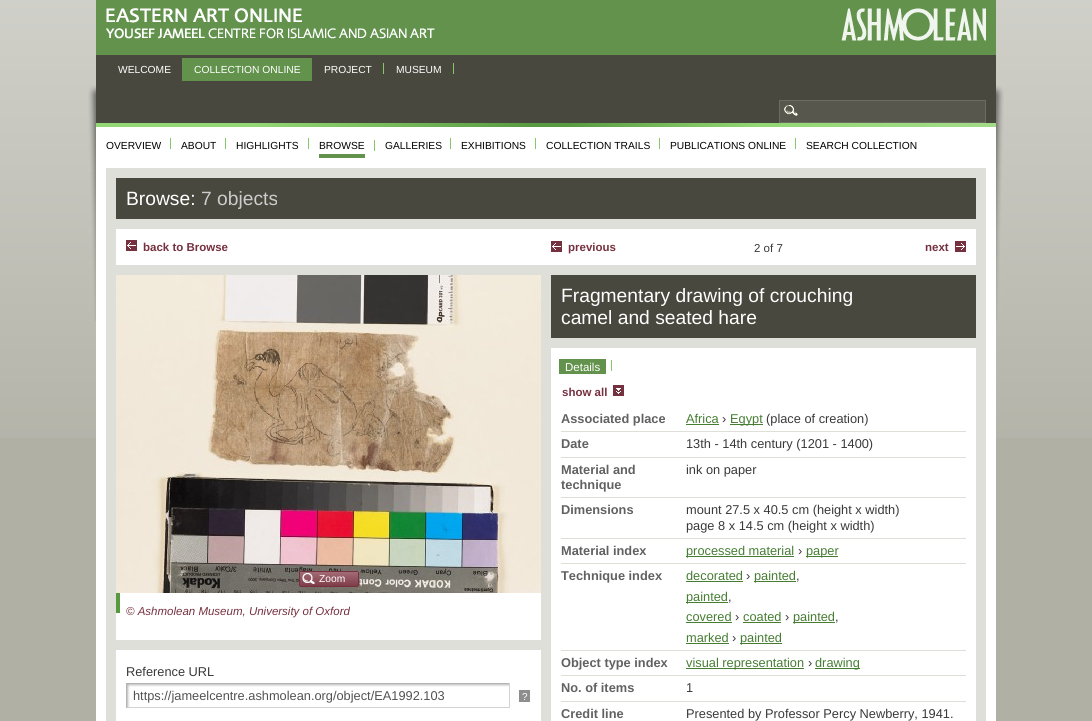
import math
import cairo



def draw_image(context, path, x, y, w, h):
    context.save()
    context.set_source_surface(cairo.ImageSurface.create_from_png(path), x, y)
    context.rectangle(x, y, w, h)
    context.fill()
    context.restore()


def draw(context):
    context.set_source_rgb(176 / 255, 176 / 255, 165 / 255)
    context.paint()
    draw_image(context, "images/1.png", 0, 0, 1092, 438)
    draw_image(context, "images/2.png", 88, 85, 916, 236)
    context.set_source_rgb(98 / 255, 146 / 255, 76 / 255)
    context.rectangle(96, 0, 900, 55)
    context.fill()
    draw_image(context, "images/3.png", 106, 8, 329, 31)
    draw_image(context, "images/4.png", 841, 8, 145, 33)
    context.set_source_rgb(72 / 255, 72 / 255, 62 / 255)
    context.rectangle(96, 55, 900, 68)
    context.fill()
    context.set_source_rgb(98 / 255, 146 / 255, 76 / 255)
    context.rectangle(182, 58, 130, 23)
    context.fill()
    context.set_source_rgb(132 / 255, 200 / 255, 103 / 255)
    context.rectangle(383, 63, 1, 11)
    context.fill()
    context.rectangle(453, 63, 1, 11)
    context.fill()
    context.set_source_rgb(87 / 255, 87 / 255, 78 / 255)
    context.rectangle(780, 101, 205, 21)
    context.fill()
    draw_image(context, "images/5.png", 784, 105, 14, 11)
    context.rectangle(779.5, 100.5, 206, 22)
    context.set_source_rgb(107 / 255, 107 / 255, 95 / 255)
    context.set_line_width(1)
    context.stroke()
    context.set_source_rgb(1, 1, 1)
    context.rectangle(96, 321, 900, 400)
    context.fill()
    draw_image(context, "images/6.png", 96, 123, 900, 4)
    context.set_source_rgb(132 / 255, 200 / 255, 103 / 255)
    context.rectangle(170, 138, 1, 11)
    context.fill()
    context.rectangle(225, 138, 1, 11)
    context.fill()
    context.rectangle(308, 138, 1, 11)
    context.fill()
    context.rectangle(374, 140, 1, 11)
    context.fill()
    context.set_source_rgb(98 / 255, 146 / 255, 76 / 255)
    context.rectangle(319, 154, 46, 4)
    context.fill()
    context.set_source_rgb(132 / 255, 200 / 255, 103 / 255)
    context.rectangle(450, 138, 1, 11)
    context.fill()
    context.rectangle(535, 138, 1, 11)
    context.fill()
    context.rectangle(659, 138, 1, 11)
    context.fill()
    context.rectangle(795, 138, 1, 11)
    context.fill()
    context.set_source_rgb(223 / 255, 223 / 255, 218 / 255)
    context.rectangle(106, 168, 880, 553)
    context.fill()
    context.set_source_rgb(72 / 255, 72 / 255, 62 / 255)
    context.rectangle(116, 178, 860, 41)
    context.fill()
    context.set_source_rgb(1, 1, 1)
    context.rectangle(116, 229, 860, 36)
    context.fill()
    draw_image(context, "images/7.png", 126, 240, 11, 11)
    draw_image(context, "images/7.png", 551, 241, 11, 11)
    draw_image(context, "images/8.png", 955, 241, 11, 11)
    context.rectangle(116, 593, 425, 128)
    context.fill()
    draw_image(context, "images/9.png", 116, 275, 425, 318)
    draw_image(context, "images/10.png", 299, 571, 60, 16)
    draw_image(context, "images/11.png", 302, 573, 13, 11)
    context.set_source_rgb(88 / 255, 153 / 255, 64 / 255)
    context.rectangle(116, 593, 4, 20)
    context.fill()
    context.set_source_rgb(223 / 255, 223 / 255, 218 / 255)
    context.rectangle(116, 640, 425, 10)
    context.fill()
    draw_image(context, "images/12.png", 127, 684, 382, 23)
    context.set_source_rgb(180 / 255, 180 / 255, 180 / 255)
    context.rectangle(126, 683, 384, 1)
    context.fill()
    context.set_source_rgb(211 / 255, 211 / 255, 211 / 255)
    context.rectangle(509, 683, 1, 25)
    context.fill()
    context.rectangle(126, 707, 384, 1)
    context.fill()
    context.set_source_rgb(180 / 255, 180 / 255, 180 / 255)
    context.rectangle(126, 683, 1, 25)
    context.fill()
    context.set_source_rgb(142 / 255, 142 / 255, 142 / 255)
    context.rectangle(519, 690, 11, 12)
    context.fill()
    context.set_source_rgb(1, 1, 1)
    context.rectangle(551, 348, 425, 373)
    context.fill()
    context.set_source_rgb(72 / 255, 72 / 255, 62 / 255)
    context.rectangle(551, 275, 425, 63)
    context.fill()
    context.set_source_rgb(132 / 255, 200 / 255, 103 / 255)
    context.rectangle(611, 360, 1, 11)
    context.fill()
    context.set_source_rgb(98 / 255, 146 / 255, 76 / 255)
    context.rectangle(559, 359, 47, 15)
    context.fill()
    draw_image(context, "images/13.png", 613, 385, 11, 11)
    context.set_source_rgb(223 / 255, 223 / 255, 218 / 255)
    context.rectangle(561, 431, 405, 1)
    context.fill()
    context.set_source_rgb(70 / 255, 125 / 255, 51 / 255)
    context.rectangle(686, 424, 33, 1)
    context.fill()
    context.rectangle(730, 424, 33, 1)
    context.fill()
    context.set_source_rgb(223 / 255, 223 / 255, 218 / 255)
    context.rectangle(561, 457, 405, 1)
    context.fill()
    context.rectangle(561, 497, 405, 1)
    context.fill()
    context.rectangle(561, 538, 405, 1)
    context.fill()
    context.rectangle(561, 563, 405, 1)
    context.fill()
    context.set_source_rgb(70 / 255, 125 / 255, 51 / 255)
    context.rectangle(686, 556, 108, 1)
    context.fill()
    context.rectangle(806, 556, 32, 1)
    context.fill()
    context.set_source_rgb(223 / 255, 223 / 255, 218 / 255)
    context.rectangle(561, 650, 405, 1)
    context.fill()
    context.set_source_rgb(70 / 255, 125 / 255, 51 / 255)
    context.rectangle(686, 581, 57, 1)
    context.fill()
    context.rectangle(754, 581, 42, 1)
    context.fill()
    context.rectangle(686, 602, 42, 1)
    context.fill()
    context.rectangle(686, 622, 46, 1)
    context.fill()
    context.rectangle(743, 622, 38, 1)
    context.fill()
    context.rectangle(793, 622, 42, 1)
    context.fill()
    context.rectangle(686, 643, 43, 1)
    context.fill()
    context.rectangle(740, 643, 42, 1)
    context.fill()
    context.set_source_rgb(223 / 255, 223 / 255, 218 / 255)
    context.rectangle(561, 675, 405, 1)
    context.fill()
    context.set_source_rgb(70 / 255, 125 / 255, 51 / 255)
    context.rectangle(686, 668, 118, 1)
    context.fill()
    context.rectangle(815, 668, 45, 1)
    context.fill()
    context.set_source_rgb(223 / 255, 223 / 255, 218 / 255)
    context.rectangle(561, 701, 405, 1)
    context.fill()
    context.select_font_face("Liberation Sans")
    context.set_font_size(10.25)
    context.set_source_rgb(1, 1, 1)
    context.move_to(118, 73)
    context.show_text("WELCOME")
    context.move_to(194, 73)
    context.show_text("COLLECTION ONLINE")
    context.move_to(324, 73)
    context.show_text("PROJECT")
    context.move_to(396, 73)
    context.show_text("MUSEUM")
    context.set_source_rgb(0, 0, 0)
    context.move_to(106, 149)
    context.show_text("OVERVIEW")
    context.move_to(181, 149)
    context.show_text("ABOUT")
    context.move_to(236, 149)
    context.show_text("HIGHLIGHTS")
    context.move_to(319, 149)
    context.show_text("BROWSE")
    context.move_to(385, 149)
    context.show_text("GALLERIES")
    context.move_to(461, 149)
    context.show_text("EXHIBITIONS")
    context.move_to(546, 149)
    context.show_text("COLLECTION TRAILS")
    context.move_to(670, 149)
    context.show_text("PUBLICATIONS ONLINE")
    context.move_to(806, 149)
    context.show_text("SEARCH COLLECTION")
    context.set_font_size(19.25)
    context.set_source_rgb(1, 1, 1)
    context.move_to(126, 205)
    context.show_text("Browse:")
    context.set_source_rgb(204 / 255, 204 / 255, 204 / 255)
    context.move_to(201, 205)
    context.show_text("7 objects")
    context.select_font_face("Liberation Sans", cairo.FontSlant.NORMAL, cairo.FontWeight.BOLD)
    context.set_font_size(11.5)
    context.set_source_rgb(118 / 255, 49 / 255, 63 / 255)
    context.move_to(143, 251)
    context.show_text("back to Browse")
    context.move_to(568, 251)
    context.show_text("previous")
    context.select_font_face("Liberation Sans")
    context.set_source_rgb(56 / 255, 57 / 255, 56 / 255)
    context.move_to(754, 252)
    context.show_text("2 of 7")
    context.select_font_face("Liberation Sans", cairo.FontSlant.NORMAL, cairo.FontWeight.BOLD)
    context.set_source_rgb(118 / 255, 49 / 255, 63 / 255)
    context.move_to(925, 251)
    context.show_text("next")
    context.select_font_face("Liberation Sans")
    context.set_font_size(10.25)
    context.set_source_rgb(1, 1, 1)
    context.move_to(319, 582)
    context.show_text("Zoom")
    context.select_font_face("Liberation Sans", cairo.FontSlant.ITALIC)
    context.set_font_size(11.5)
    context.set_source_rgb(118 / 255, 49 / 255, 63 / 255)
    context.move_to(126, 615)
    context.show_text("© Ashmolean Museum, University of Oxford")
    context.select_font_face("Liberation Sans")
    context.set_font_size(12.8)
    context.set_source_rgb(56 / 255, 57 / 255, 56 / 255)
    context.move_to(126, 676)
    context.show_text("Reference URL")
    context.set_source_rgb(82 / 255, 82 / 255, 82 / 255)
    context.move_to(133, 700)
    context.show_text("https://jameelcentre.ashmolean.org/object/EA1992.103")
    context.set_font_size(10)
    context.set_source_rgb(1, 1, 1)
    context.move_to(522, 700)
    context.show_text("?")
    context.set_font_size(19.25)
    context.move_to(561, 302)
    context.show_text("Fragmentary drawing of crouching")
    context.move_to(561, 324)
    context.show_text("camel and seated hare")
    context.set_font_size(11.5)
    context.move_to(565, 371)
    context.show_text("Details")
    context.select_font_face("Liberation Sans", cairo.FontSlant.NORMAL, cairo.FontWeight.BOLD)
    context.set_source_rgb(118 / 255, 49 / 255, 63 / 255)
    context.move_to(562, 396)
    context.show_text("show all")
    context.set_font_size(12.8)
    context.set_source_rgb(97 / 255, 97 / 255, 97 / 255)
    context.move_to(561, 423)
    context.show_text("Associated place")
    context.select_font_face("Liberation Sans")
    context.set_source_rgb(70 / 255, 125 / 255, 51 / 255)
    context.move_to(686, 423)
    context.show_text("Africa")
    context.set_source_rgb(56 / 255, 57 / 255, 56 / 255)
    context.move_to(722, 423)
    context.show_text("›")
    context.set_source_rgb(70 / 255, 125 / 255, 51 / 255)
    context.move_to(730, 423)
    context.show_text("Egypt")
    context.set_source_rgb(56 / 255, 57 / 255, 56 / 255)
    context.move_to(766, 423)
    context.show_text("(place of creation)")
    context.select_font_face("Liberation Sans", cairo.FontSlant.NORMAL, cairo.FontWeight.BOLD)
    context.set_source_rgb(97 / 255, 97 / 255, 97 / 255)
    context.move_to(561, 448)
    context.show_text("Date")
    context.select_font_face("Liberation Sans")
    context.set_source_rgb(56 / 255, 57 / 255, 56 / 255)
    context.move_to(686, 448)
    context.show_text("13th - 14th century (1201 - 1400)")
    context.select_font_face("Liberation Sans", cairo.FontSlant.NORMAL, cairo.FontWeight.BOLD)
    context.set_source_rgb(97 / 255, 97 / 255, 97 / 255)
    context.move_to(561, 474)
    context.show_text("Material and")
    context.move_to(561, 489)
    context.show_text("technique")
    context.select_font_face("Liberation Sans")
    context.set_source_rgb(56 / 255, 57 / 255, 56 / 255)
    context.move_to(686, 474)
    context.show_text("ink on paper")
    context.select_font_face("Liberation Sans", cairo.FontSlant.NORMAL, cairo.FontWeight.BOLD)
    context.set_source_rgb(97 / 255, 97 / 255, 97 / 255)
    context.move_to(561, 514)
    context.show_text("Dimensions")
    context.select_font_face("Liberation Sans")
    context.set_source_rgb(56 / 255, 57 / 255, 56 / 255)
    context.move_to(686, 514)
    context.show_text("mount 27.5 x 40.5 cm (height x width)")
    context.move_to(686, 530)
    context.show_text("page 8 x 14.5 cm (height x width)")
    context.select_font_face("Liberation Sans", cairo.FontSlant.NORMAL, cairo.FontWeight.BOLD)
    context.set_source_rgb(97 / 255, 97 / 255, 97 / 255)
    context.move_to(561, 555)
    context.show_text("Material index")
    context.select_font_face("Liberation Sans")
    context.set_source_rgb(70 / 255, 125 / 255, 51 / 255)
    context.move_to(686, 555)
    context.show_text("processed material")
    context.set_source_rgb(56 / 255, 57 / 255, 56 / 255)
    context.move_to(798, 555)
    context.show_text("›")
    context.set_source_rgb(70 / 255, 125 / 255, 51 / 255)
    context.move_to(806, 555)
    context.show_text("paper")
    context.select_font_face("Liberation Sans", cairo.FontSlant.NORMAL, cairo.FontWeight.BOLD)
    context.set_source_rgb(97 / 255, 97 / 255, 97 / 255)
    context.move_to(561, 580)
    context.show_text("Technique index")
    context.select_font_face("Liberation Sans")
    context.set_source_rgb(70 / 255, 125 / 255, 51 / 255)
    context.move_to(686, 580)
    context.show_text("decorated")
    context.set_source_rgb(56 / 255, 57 / 255, 56 / 255)
    context.move_to(746, 580)
    context.show_text("›")
    context.set_source_rgb(70 / 255, 125 / 255, 51 / 255)
    context.move_to(754, 580)
    context.show_text("painted")
    context.set_source_rgb(56 / 255, 57 / 255, 56 / 255)
    context.move_to(796, 580)
    context.show_text(",")
    context.set_source_rgb(70 / 255, 125 / 255, 51 / 255)
    context.move_to(686, 601)
    context.show_text("painted")
    context.set_source_rgb(56 / 255, 57 / 255, 56 / 255)
    context.move_to(728, 601)
    context.show_text(",")
    context.set_source_rgb(70 / 255, 125 / 255, 51 / 255)
    context.move_to(686, 621)
    context.show_text("covered")
    context.set_source_rgb(56 / 255, 57 / 255, 56 / 255)
    context.move_to(735, 621)
    context.show_text("›")
    context.set_source_rgb(70 / 255, 125 / 255, 51 / 255)
    context.move_to(743, 621)
    context.show_text("coated")
    context.set_source_rgb(56 / 255, 57 / 255, 56 / 255)
    context.move_to(785, 621)
    context.show_text("›")
    context.set_source_rgb(70 / 255, 125 / 255, 51 / 255)
    context.move_to(793, 621)
    context.show_text("painted")
    context.set_source_rgb(56 / 255, 57 / 255, 56 / 255)
    context.move_to(835, 621)
    context.show_text(",")
    context.set_source_rgb(70 / 255, 125 / 255, 51 / 255)
    context.move_to(686, 642)
    context.show_text("marked")
    context.set_source_rgb(56 / 255, 57 / 255, 56 / 255)
    context.move_to(732, 642)
    context.show_text("›")
    context.set_source_rgb(70 / 255, 125 / 255, 51 / 255)
    context.move_to(740, 642)
    context.show_text("painted")
    context.select_font_face("Liberation Sans", cairo.FontSlant.NORMAL, cairo.FontWeight.BOLD)
    context.set_source_rgb(97 / 255, 97 / 255, 97 / 255)
    context.move_to(561, 667)
    context.show_text("Object type index")
    context.select_font_face("Liberation Sans")
    context.set_source_rgb(70 / 255, 125 / 255, 51 / 255)
    context.move_to(686, 667)
    context.show_text("visual representation")
    context.set_source_rgb(56 / 255, 57 / 255, 56 / 255)
    context.move_to(808, 667)
    context.show_text("›")
    context.set_source_rgb(70 / 255, 125 / 255, 51 / 255)
    context.move_to(815, 667)
    context.show_text("drawing")
    context.select_font_face("Liberation Sans", cairo.FontSlant.NORMAL, cairo.FontWeight.BOLD)
    context.set_source_rgb(97 / 255, 97 / 255, 97 / 255)
    context.move_to(561, 692)
    context.show_text("No. of items")
    context.select_font_face("Liberation Sans")
    context.set_source_rgb(56 / 255, 57 / 255, 56 / 255)
    context.move_to(686, 692)
    context.show_text("1")
    context.select_font_face("Liberation Sans", cairo.FontSlant.NORMAL, cairo.FontWeight.BOLD)
    context.set_source_rgb(97 / 255, 97 / 255, 97 / 255)
    context.move_to(561, 718)
    context.show_text("Credit line")
    context.select_font_face("Liberation Sans")
    context.set_source_rgb(56 / 255, 57 / 255, 56 / 255)
    context.move_to(686, 718)
    context.show_text("Presented by Professor Percy Newberry, 1941.")


surface = cairo.ImageSurface(cairo.Format.RGB24, 1092, 721)
context = cairo.Context(surface)
options = cairo.FontOptions()
options.set_hint_metrics(cairo.HintMetrics.OFF)
options.set_hint_style(cairo.HintStyle.NONE)
context.set_font_options(options)
context.set_miter_limit(4)
draw(context)
surface.write_to_png("out.png")
